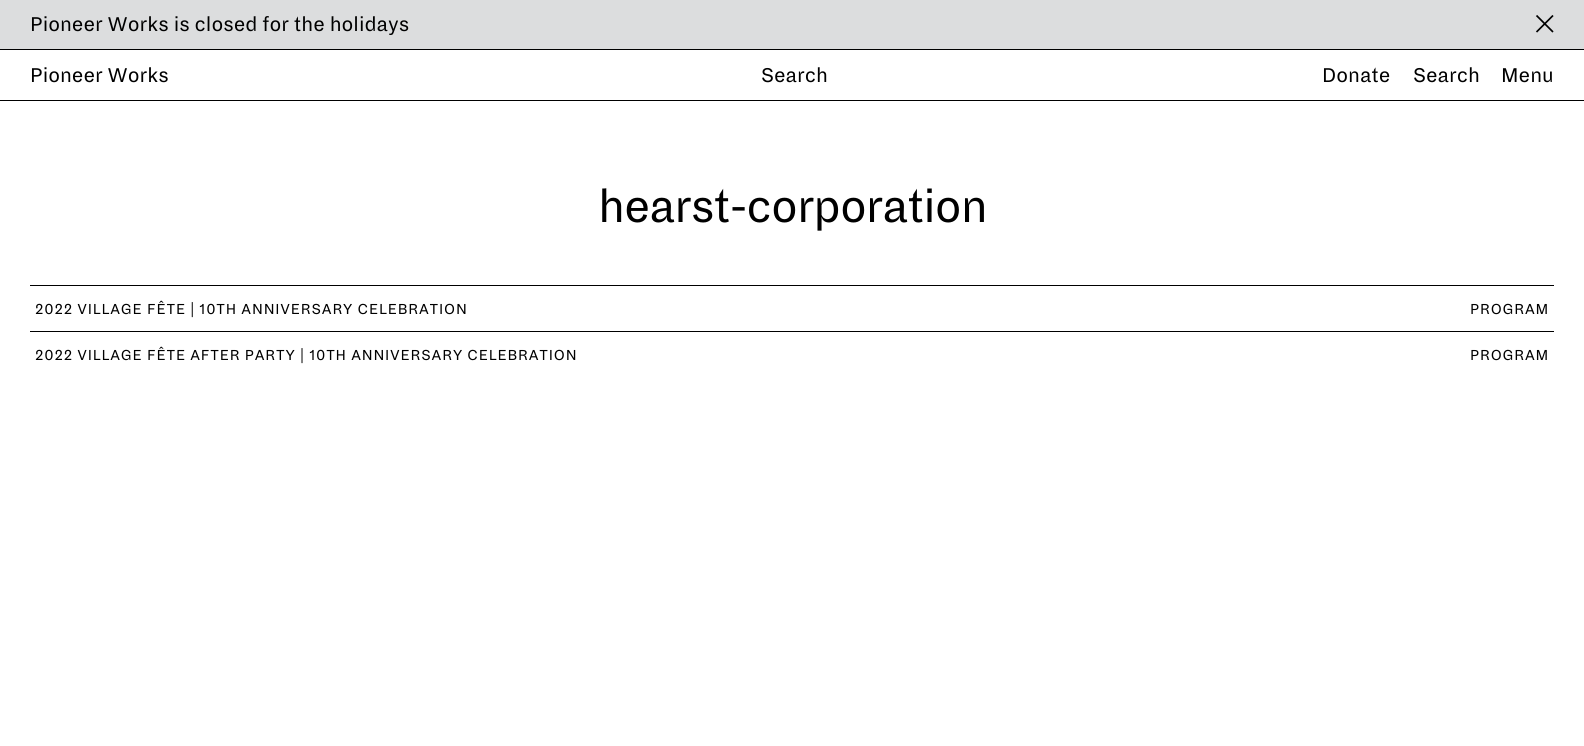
import math
import cairo



def draw_spaced(context, x, y, s, letter, word):
    context.move_to(x, y)
    for ch in s:
        context.show_text(ch)
        context.rel_move_to(letter + word * (ch == ' '), 0)


def draw(context):
    context.set_source_rgb(1, 1, 1)
    context.paint()
    context.set_source_rgb(220 / 255, 221 / 255, 222 / 255)
    context.rectangle(0, 0, 1584, 49)
    context.fill()
    context.set_source_rgb(0, 0, 0)
    context.rectangle(0, 49, 1584, 1)
    context.fill()
    context.new_path()
    context.move_to(1536.5, 15.5)
    context.line_to(1553, 32)
    context.move_to(1553, 15.5)
    context.line_to(1536.5, 32)
    context.set_line_width(1.7)
    context.stroke()
    context.rectangle(0, 100, 1584, 1)
    context.fill()
    context.rectangle(30, 285, 1524, 1)
    context.fill()
    context.rectangle(30, 331, 1524, 1)
    context.fill()
    context.select_font_face("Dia")
    context.set_font_size(22)
    context.move_to(30, 31)
    context.show_text("Pioneer Works is closed for the holidays")
    context.move_to(30, 82)
    context.show_text("Pioneer Works")
    context.move_to(761, 82)
    context.show_text("Search")
    context.move_to(1322, 82)
    context.show_text("Donate")
    context.move_to(1413, 82)
    context.show_text("Search")
    context.move_to(1501, 82)
    context.show_text("Menu")
    context.set_font_size(50)
    draw_spaced(context, 598, 222, "hearst-corporation", -1, 0)
    context.set_font_size(16)
    draw_spaced(context, 35, 314, "2022 VILLAGE FÊTE | 10TH ANNIVERSARY CELEBRATION", 0.8, 0)
    draw_spaced(context, 1470, 314, "PROGRAM", 0.8, 0)
    draw_spaced(context, 35, 360, "2022 VILLAGE FÊTE AFTER PARTY | 10TH ANNIVERSARY CELEBRATION", 0.8, 0)
    draw_spaced(context, 1470, 360, "PROGRAM", 0.8, 0)


surface = cairo.ImageSurface(cairo.Format.RGB24, 1584, 746)
context = cairo.Context(surface)
options = cairo.FontOptions()
options.set_hint_metrics(cairo.HintMetrics.OFF)
options.set_hint_style(cairo.HintStyle.NONE)
context.set_font_options(options)
context.set_miter_limit(4)
draw(context)
surface.write_to_png("out.png")
